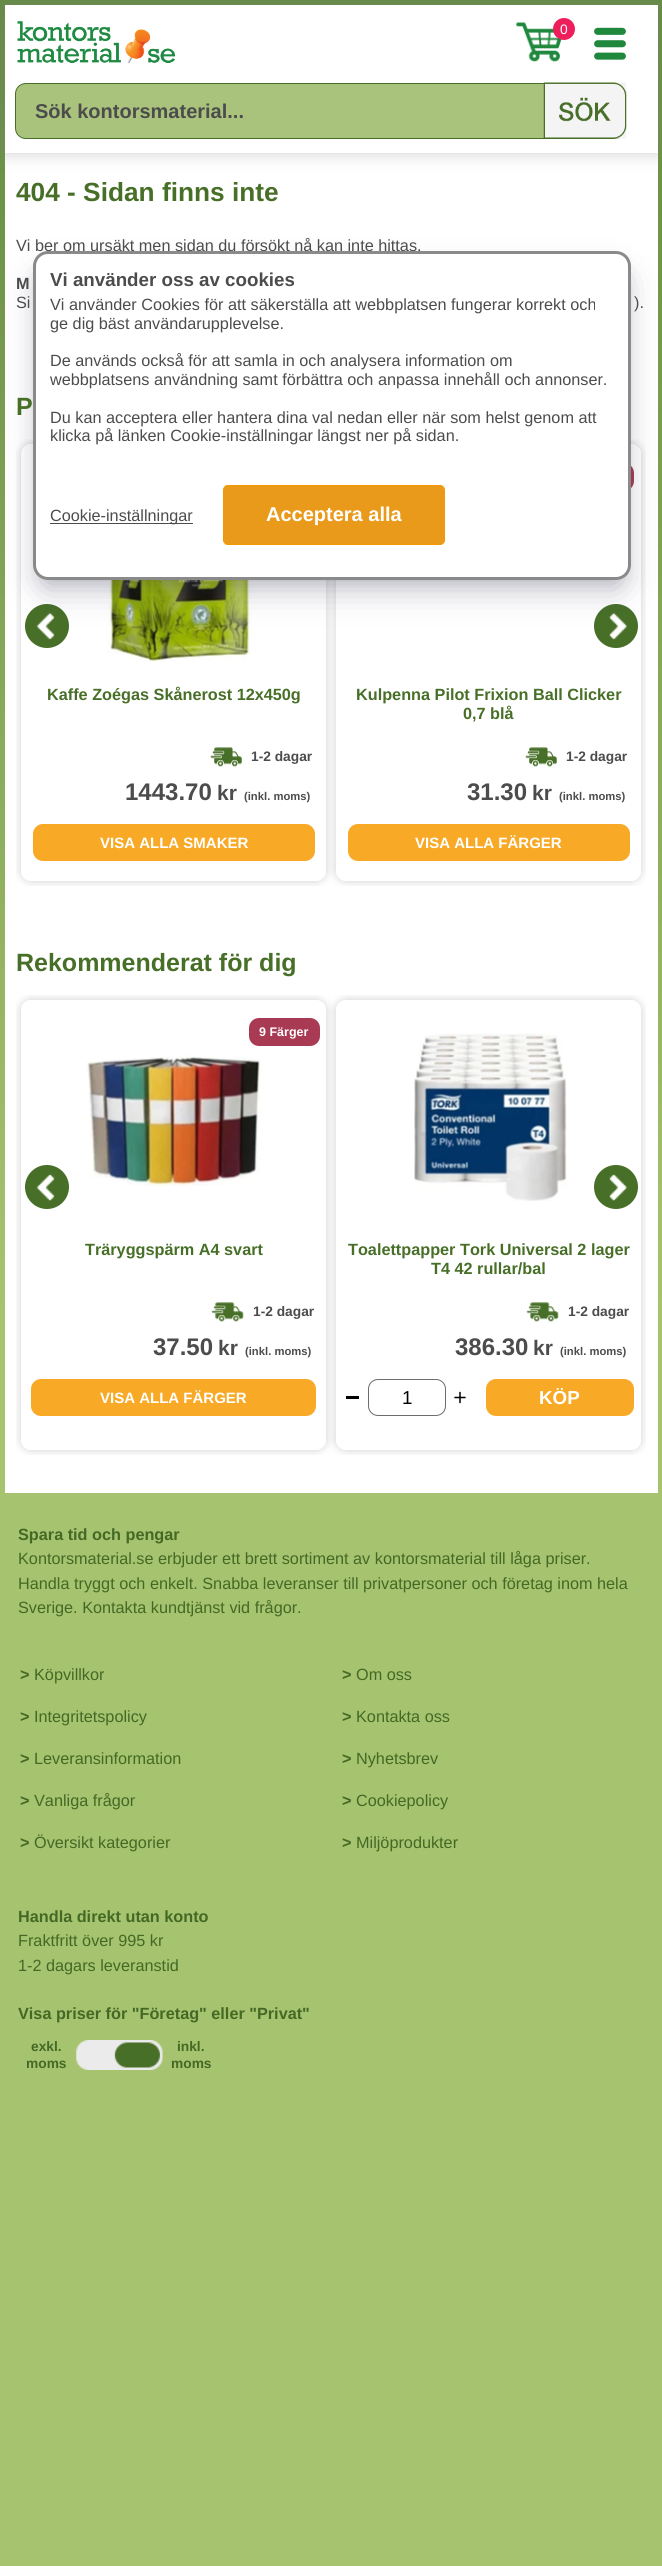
import math
import cairo



def rounded_rect(context, x, y, w, h, r):
    context.new_sub_path()
    for i, (u, v) in enumerate([(x + w - r, y + h - r), (x + r, y + h - r), (x + r, y + r), (x + w - r, y + r)]):
        context.arc(u, v, r, i * math.pi / 2, (i + 1) * math.pi / 2)
    context.close_path()


def draw_shadow(context, x, y, w, h, r, blur, alpha):
    context.push_group_with_content(cairo.Content.ALPHA)
    context.set_operator(cairo.Operator.SOURCE)
    for i in range(15, -16, -2):
        e = blur * i / 6
        if min(w, h) + 2 * e > 0:
            context.set_source_rgba(0, 0, 0, alpha * math.erfc((i - 1) / 8.5) / 2)
            rounded_rect(context, x - e, y - e, w + 2 * e, h + 2 * e, max(0, min(r + e + blur * .6, min(w, h) / 2 + e)))
            context.fill()
    context.mask(context.pop_group())


def draw_image(context, path, x, y, w, h):
    context.save()
    context.set_source_surface(cairo.ImageSurface.create_from_png(path), x, y)
    context.rectangle(x, y, w, h)
    context.fill()
    context.restore()


def draw(context):
    context.set_source_rgb(1, 1, 1)
    context.paint()
    gradient = cairo.LinearGradient(331, 0, 331, 2566)
    gradient.add_color_stop_rgba(0, 99 / 255, 139 / 255, 65 / 255, 1)
    gradient.add_color_stop_rgba(0.51, 166 / 255, 195 / 255, 111 / 255, 1)
    gradient.add_color_stop_rgba(1, 166 / 255, 195 / 255, 111 / 255, 1)
    context.set_source(gradient)
    context.rectangle(0, 0, 662, 2566)
    context.fill()
    context.set_source_rgb(1, 1, 1)
    context.rectangle(5, 153, 653, 1340)
    context.fill()
    context.set_source_rgb(128 / 255, 128 / 255, 128 / 255)
    draw_shadow(context, 5, 5, 653, 148, 0, 9, 0.4)
    context.set_source_rgb(1, 1, 1)
    context.rectangle(5, 5, 653, 148)
    context.fill()
    draw_image(context, "images/1.png", 17, 21, 158, 43)
    draw_image(context, "images/2.png", 516, 22, 46, 40)
    context.set_source_rgb(238 / 255, 30 / 255, 91 / 255)
    context.arc(564, 29, 11, 0, 2 * math.pi)
    context.fill()
    draw_image(context, "images/3.png", 594, 27, 32, 33)
    context.set_source_rgb(170 / 255, 195 / 255, 124 / 255)
    context.new_path()
    context.move_to(26, 83.5)
    context.line_to(618.5, 83.5)
    context.line_to(618.5, 138.5)
    context.line_to(26, 138.5)
    context.curve_to(20, 138.5, 15.5, 134, 15.5, 128)
    context.line_to(15.5, 94)
    context.curve_to(15.5, 88, 20, 83.5, 26, 83.5)
    context.close_path()
    context.fill_preserve()
    context.set_source_rgb(71 / 255, 111 / 255, 39 / 255)
    context.set_line_width(1)
    context.stroke()
    draw_image(context, "images/4.png", 543, 82, 84, 57)
    context.save()
    context.rectangle(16, 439, 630, 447)
    context.clip()
    context.set_fill_rule(cairo.FillRule.EVEN_ODD)
    context.new_path()
    context.move_to(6, 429)
    context.line_to(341, 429)
    context.line_to(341, 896)
    context.line_to(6, 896)
    context.close_path()
    context.move_to(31, 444)
    context.line_to(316, 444)
    context.curve_to(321.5, 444, 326, 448.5, 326, 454)
    context.line_to(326, 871)
    context.curve_to(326, 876.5, 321.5, 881, 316, 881)
    context.line_to(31, 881)
    context.curve_to(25.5, 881, 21, 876.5, 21, 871)
    context.line_to(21, 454)
    context.curve_to(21, 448.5, 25.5, 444, 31, 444)
    context.close_path()
    context.clip()
    context.set_source_rgb(128 / 255, 128 / 255, 128 / 255)
    draw_shadow(context, 21, 444, 305, 437, 10, 4.5, 0.4)
    context.restore()
    context.arc(47, 626, 22, 0, 2 * math.pi)
    context.fill()
    draw_image(context, "images/5.png", 36, 612, 19, 28)
    context.save()
    context.rectangle(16, 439, 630, 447)
    context.clip()
    context.set_fill_rule(cairo.FillRule.EVEN_ODD)
    context.new_path()
    context.move_to(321, 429)
    context.line_to(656, 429)
    context.line_to(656, 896)
    context.line_to(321, 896)
    context.close_path()
    context.move_to(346, 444)
    context.line_to(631, 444)
    context.curve_to(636.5, 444, 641, 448.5, 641, 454)
    context.line_to(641, 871)
    context.curve_to(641, 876.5, 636.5, 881, 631, 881)
    context.line_to(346, 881)
    context.curve_to(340.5, 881, 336, 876.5, 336, 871)
    context.line_to(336, 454)
    context.curve_to(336, 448.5, 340.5, 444, 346, 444)
    context.close_path()
    context.clip()
    context.set_source_rgb(128 / 255, 128 / 255, 128 / 255)
    draw_shadow(context, 336, 444, 305, 437, 10, 4.5, 0.4)
    context.restore()
    context.arc(616, 626, 22, 0, 2 * math.pi)
    context.fill()
    draw_image(context, "images/6.png", 609, 612, 19, 28)
    draw_image(context, "images/7.png", 108, 580, 144, 82)
    draw_image(context, "images/8.png", 210, 747, 32, 20)
    context.set_source_rgb(248 / 255, 169 / 255, 38 / 255)
    rounded_rect(context, 33, 824, 282, 37, 10)
    context.fill()
    context.set_source_rgb(169 / 255, 58 / 255, 84 / 255)
    rounded_rect(context, 559, 463, 75, 28, 10)
    context.fill()
    draw_image(context, "images/8.png", 525, 747, 32, 20)
    context.set_source_rgb(248 / 255, 169 / 255, 38 / 255)
    rounded_rect(context, 348, 824, 282, 37, 10)
    context.fill()
    context.save()
    context.rectangle(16, 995, 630, 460)
    context.clip()
    context.set_fill_rule(cairo.FillRule.EVEN_ODD)
    context.new_path()
    context.move_to(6, 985)
    context.line_to(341, 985)
    context.line_to(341, 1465)
    context.line_to(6, 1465)
    context.close_path()
    context.move_to(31, 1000)
    context.line_to(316, 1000)
    context.curve_to(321.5, 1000, 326, 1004.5, 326, 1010)
    context.line_to(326, 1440)
    context.curve_to(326, 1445.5, 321.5, 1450, 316, 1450)
    context.line_to(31, 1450)
    context.curve_to(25.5, 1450, 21, 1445.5, 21, 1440)
    context.line_to(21, 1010)
    context.curve_to(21, 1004.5, 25.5, 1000, 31, 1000)
    context.close_path()
    context.clip()
    context.set_source_rgb(128 / 255, 128 / 255, 128 / 255)
    draw_shadow(context, 21, 1000, 305, 450, 10, 4.5, 0.4)
    context.restore()
    context.set_source_rgb(71 / 255, 111 / 255, 39 / 255)
    context.arc(47, 1187, 22, 0, 2 * math.pi)
    context.fill()
    draw_image(context, "images/9.png", 36, 1174, 19, 27)
    context.set_source_rgb(169 / 255, 58 / 255, 84 / 255)
    rounded_rect(context, 249, 1018, 71, 28, 10)
    context.fill()
    draw_image(context, "images/10.png", 86, 1055, 176, 131)
    draw_image(context, "images/11.png", 211, 1302, 33, 20)
    context.set_source_rgb(248 / 255, 169 / 255, 38 / 255)
    rounded_rect(context, 31, 1379, 285, 37, 10)
    context.fill()
    context.save()
    context.rectangle(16, 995, 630, 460)
    context.clip()
    context.set_fill_rule(cairo.FillRule.EVEN_ODD)
    context.new_path()
    context.move_to(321, 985)
    context.line_to(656, 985)
    context.line_to(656, 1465)
    context.line_to(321, 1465)
    context.close_path()
    context.move_to(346, 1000)
    context.line_to(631, 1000)
    context.curve_to(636.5, 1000, 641, 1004.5, 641, 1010)
    context.line_to(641, 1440)
    context.curve_to(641, 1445.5, 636.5, 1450, 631, 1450)
    context.line_to(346, 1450)
    context.curve_to(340.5, 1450, 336, 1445.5, 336, 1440)
    context.line_to(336, 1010)
    context.curve_to(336, 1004.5, 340.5, 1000, 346, 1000)
    context.close_path()
    context.clip()
    context.set_source_rgb(128 / 255, 128 / 255, 128 / 255)
    draw_shadow(context, 336, 1000, 305, 450, 10, 4.5, 0.4)
    context.restore()
    draw_image(context, "images/12.png", 414, 1033, 153, 168)
    draw_image(context, "images/11.png", 526, 1302, 33, 20)
    context.set_source_rgb(0, 0, 0)
    context.rectangle(346, 1396, 13, 3)
    context.fill()
    rounded_rect(context, 368.5, 1379.5, 77, 36, 9.5)
    context.set_source_rgb(109 / 255, 108 / 255, 108 / 255)
    context.stroke()
    context.new_path()
    context.move_to(455, 1397.5)
    context.line_to(465, 1397.5)
    context.move_to(460, 1392.5)
    context.line_to(460, 1402.5)
    context.set_source_rgb(0, 0, 0)
    context.set_line_width(1.5)
    context.set_line_cap(cairo.LineCap.ROUND)
    context.set_line_join(cairo.LineJoin.ROUND)
    context.stroke()
    context.set_source_rgb(248 / 255, 169 / 255, 38 / 255)
    rounded_rect(context, 486, 1379, 148, 37, 10)
    context.fill()
    context.set_source_rgb(71 / 255, 111 / 255, 39 / 255)
    context.arc(616, 1187, 22, 0, 2 * math.pi)
    context.fill()
    draw_image(context, "images/13.png", 609, 1174, 19, 27)
    draw_image(context, "images/14.png", 76, 2040, 87, 30)
    context.set_source_rgb(0, 0, 0)
    draw_shadow(context, 43, 271, 578, 309, 5, 10, 0.2)
    context.set_source_rgb(50 / 255, 50 / 255, 93 / 255)
    draw_shadow(context, 39, 274, 586, 316, 9, 17, 0.25)
    context.select_font_face("Liberation Sans")
    context.set_font_size(13.75)
    context.set_source_rgb(1, 1, 1)
    context.move_to(560, 34)
    context.show_text("0")
    context.select_font_face("Liberation Sans", cairo.FontSlant.NORMAL, cairo.FontWeight.BOLD)
    context.set_font_size(20)
    context.set_source_rgb(76 / 255, 76 / 255, 76 / 255)
    context.move_to(35, 118)
    context.show_text("Sök kontorsmaterial...")
    context.set_font_size(26.25)
    context.set_source_rgb(71 / 255, 111 / 255, 39 / 255)
    context.move_to(16, 201)
    context.show_text("404 - Sidan finns inte")
    context.select_font_face("Liberation Sans")
    context.set_font_size(16.25)
    context.set_source_rgb(76 / 255, 76 / 255, 76 / 255)
    context.move_to(16, 251)
    context.show_text("Vi ber om ursäkt men sidan du försökt nå kan inte hittas.")
    context.select_font_face("Liberation Sans", cairo.FontSlant.NORMAL, cairo.FontWeight.BOLD)
    context.move_to(16, 289)
    context.show_text("M")
    context.select_font_face("Liberation Sans")
    context.move_to(16, 308)
    context.show_text("Si")
    context.move_to(634, 308)
    context.show_text(").")
    context.select_font_face("Liberation Sans", cairo.FontSlant.NORMAL, cairo.FontWeight.BOLD)
    context.set_font_size(25)
    context.set_source_rgb(71 / 255, 111 / 255, 39 / 255)
    context.move_to(16, 415)
    context.show_text("P")
    context.set_font_size(16.25)
    context.move_to(47, 700)
    context.show_text("Kaffe Zoégas Skånerost 12x450g")
    context.set_font_size(13.75)
    context.set_source_rgb(76 / 255, 76 / 255, 76 / 255)
    context.move_to(251, 761)
    context.show_text("1-2 dagar")
    context.set_font_size(24)
    context.move_to(125, 800)
    context.show_text("1443.70")
    context.set_font_size(21)
    context.move_to(217, 800)
    context.show_text("kr")
    context.set_font_size(11.25)
    context.move_to(244, 800)
    context.show_text("(inkl. moms)")
    context.set_font_size(15)
    context.set_source_rgb(1, 1, 1)
    context.move_to(100, 848)
    context.show_text("VISA ALLA SMAKER")
    context.set_font_size(16.25)
    context.set_source_rgb(71 / 255, 111 / 255, 39 / 255)
    context.move_to(356, 700)
    context.show_text("Kulpenna Pilot Frixion Ball Clicker")
    context.move_to(463, 719)
    context.show_text("0,7 blå")
    context.set_font_size(13.75)
    context.set_source_rgb(76 / 255, 76 / 255, 76 / 255)
    context.move_to(566, 761)
    context.show_text("1-2 dagar")
    context.set_font_size(24)
    context.move_to(467, 800)
    context.show_text("31.30")
    context.set_font_size(21)
    context.move_to(532, 800)
    context.show_text("kr")
    context.set_font_size(11.25)
    context.move_to(559, 800)
    context.show_text("(inkl. moms)")
    context.set_font_size(15)
    context.set_source_rgb(1, 1, 1)
    context.move_to(415, 848)
    context.show_text("VISA ALLA FÄRGER")
    context.set_font_size(25)
    context.set_source_rgb(71 / 255, 111 / 255, 39 / 255)
    context.move_to(16, 971)
    context.show_text("Rekommenderat för dig")
    context.set_font_size(12.5)
    context.set_source_rgb(1, 1, 1)
    context.move_to(259, 1036)
    context.show_text("9 Färger")
    context.set_font_size(16.25)
    context.set_source_rgb(71 / 255, 111 / 255, 39 / 255)
    context.move_to(85, 1255)
    context.show_text("Träryggspärm A4 svart")
    context.set_font_size(13.75)
    context.set_source_rgb(76 / 255, 76 / 255, 76 / 255)
    context.move_to(253, 1316)
    context.show_text("1-2 dagar")
    context.set_font_size(24)
    context.move_to(153, 1355)
    context.show_text("37.50")
    context.set_font_size(21)
    context.move_to(218, 1355)
    context.show_text("kr")
    context.set_font_size(11.25)
    context.move_to(245, 1355)
    context.show_text("(inkl. moms)")
    context.set_font_size(15)
    context.set_source_rgb(1, 1, 1)
    context.move_to(100, 1403)
    context.show_text("VISA ALLA FÄRGER")
    context.set_font_size(16.25)
    context.set_source_rgb(71 / 255, 111 / 255, 39 / 255)
    context.move_to(348, 1255)
    context.show_text("Toalettpapper Tork Universal 2 lager")
    context.move_to(431, 1274)
    context.show_text("T4 42 rullar/bal")
    context.set_font_size(13.75)
    context.set_source_rgb(76 / 255, 76 / 255, 76 / 255)
    context.move_to(568, 1316)
    context.show_text("1-2 dagar")
    context.set_font_size(24)
    context.move_to(455, 1355)
    context.show_text("386.30")
    context.set_font_size(21)
    context.move_to(533, 1355)
    context.show_text("kr")
    context.set_font_size(11.25)
    context.move_to(560, 1355)
    context.show_text("(inkl. moms)")
    context.select_font_face("Liberation Sans")
    context.set_font_size(18.75)
    context.set_source_rgb(0, 0, 0)
    context.move_to(402, 1404)
    context.show_text("1")
    context.select_font_face("Liberation Sans", cairo.FontSlant.NORMAL, cairo.FontWeight.BOLD)
    context.set_source_rgb(1, 1, 1)
    context.move_to(539, 1404)
    context.show_text("KÖP")
    context.set_font_size(16.25)
    context.set_source_rgb(67 / 255, 105 / 255, 36 / 255)
    context.move_to(18, 1540)
    context.show_text("Spara tid och pengar")
    context.select_font_face("Liberation Sans")
    context.move_to(18, 1564)
    context.show_text("Kontorsmaterial.se erbjuder ett brett sortiment av kontorsmaterial till låga priser.")
    context.move_to(18, 1589)
    context.show_text("Handla tryggt och enkelt. Snabba leveranser till privatpersoner och företag inom hela")
    context.move_to(18, 1613)
    context.show_text("Sverige. Kontakta kundtjänst vid frågor.")
    context.select_font_face("Liberation Sans", cairo.FontSlant.NORMAL, cairo.FontWeight.BOLD)
    context.move_to(20, 1680)
    context.show_text(">")
    context.select_font_face("Liberation Sans")
    context.move_to(34, 1680)
    context.show_text("Köpvillkor")
    context.select_font_face("Liberation Sans", cairo.FontSlant.NORMAL, cairo.FontWeight.BOLD)
    context.move_to(342, 1680)
    context.show_text(">")
    context.select_font_face("Liberation Sans")
    context.move_to(356, 1680)
    context.show_text("Om oss")
    context.select_font_face("Liberation Sans", cairo.FontSlant.NORMAL, cairo.FontWeight.BOLD)
    context.move_to(20, 1722)
    context.show_text(">")
    context.select_font_face("Liberation Sans")
    context.move_to(34, 1722)
    context.show_text("Integritetspolicy")
    context.select_font_face("Liberation Sans", cairo.FontSlant.NORMAL, cairo.FontWeight.BOLD)
    context.move_to(342, 1722)
    context.show_text(">")
    context.select_font_face("Liberation Sans")
    context.move_to(356, 1722)
    context.show_text("Kontakta oss")
    context.select_font_face("Liberation Sans", cairo.FontSlant.NORMAL, cairo.FontWeight.BOLD)
    context.move_to(20, 1764)
    context.show_text(">")
    context.select_font_face("Liberation Sans")
    context.move_to(34, 1764)
    context.show_text("Leveransinformation")
    context.select_font_face("Liberation Sans", cairo.FontSlant.NORMAL, cairo.FontWeight.BOLD)
    context.move_to(342, 1764)
    context.show_text(">")
    context.select_font_face("Liberation Sans")
    context.move_to(356, 1764)
    context.show_text("Nyhetsbrev")
    context.select_font_face("Liberation Sans", cairo.FontSlant.NORMAL, cairo.FontWeight.BOLD)
    context.move_to(20, 1806)
    context.show_text(">")
    context.select_font_face("Liberation Sans")
    context.move_to(34, 1806)
    context.show_text("Vanliga frågor")
    context.select_font_face("Liberation Sans", cairo.FontSlant.NORMAL, cairo.FontWeight.BOLD)
    context.move_to(342, 1806)
    context.show_text(">")
    context.select_font_face("Liberation Sans")
    context.move_to(356, 1806)
    context.show_text("Cookiepolicy")
    context.select_font_face("Liberation Sans", cairo.FontSlant.NORMAL, cairo.FontWeight.BOLD)
    context.move_to(20, 1848)
    context.show_text(">")
    context.select_font_face("Liberation Sans")
    context.move_to(34, 1848)
    context.show_text("Översikt kategorier")
    context.select_font_face("Liberation Sans", cairo.FontSlant.NORMAL, cairo.FontWeight.BOLD)
    context.move_to(342, 1848)
    context.show_text(">")
    context.select_font_face("Liberation Sans")
    context.move_to(356, 1848)
    context.show_text("Miljöprodukter")
    context.select_font_face("Liberation Sans", cairo.FontSlant.NORMAL, cairo.FontWeight.BOLD)
    context.move_to(18, 1922)
    context.show_text("Handla direkt utan konto")
    context.select_font_face("Liberation Sans")
    context.move_to(18, 1946)
    context.show_text("Fraktfritt över 995 kr")
    context.move_to(18, 1971)
    context.show_text("1-2 dagars leveranstid")
    context.select_font_face("Liberation Sans", cairo.FontSlant.NORMAL, cairo.FontWeight.BOLD)
    context.move_to(18, 2019)
    context.show_text("Visa priser för \"Företag\" eller \"Privat\"")
    context.set_font_size(13.75)
    context.move_to(31, 2051)
    context.show_text("exkl.")
    context.move_to(26, 2068)
    context.show_text("moms")
    context.move_to(177, 2051)
    context.show_text("inkl.")
    context.move_to(171, 2068)
    context.show_text("moms")
    context.set_source_rgb(1, 1, 1)
    rounded_rect(context, 34.5, 252.5, 595, 326, 13.5)
    context.fill_preserve()
    context.set_source_rgb(139 / 255, 138 / 255, 138 / 255)
    context.set_line_width(3)
    context.set_line_cap(cairo.LineCap.BUTT)
    context.set_line_join(cairo.LineJoin.MITER)
    context.stroke()
    context.set_font_size(18.75)
    context.set_source_rgb(76 / 255, 76 / 255, 76 / 255)
    context.move_to(50, 286)
    context.show_text("Vi använder oss av cookies")
    context.select_font_face("Liberation Sans")
    context.set_font_size(16.25)
    context.move_to(50, 310)
    context.show_text("Vi använder Cookies för att säkerställa att webbplatsen fungerar korrekt och")
    context.move_to(50, 329)
    context.show_text("ge dig bäst användarupplevelse.")
    context.move_to(50, 366)
    context.show_text("De används också för att samla in och analysera information om")
    context.move_to(50, 385)
    context.show_text("webbplatsens användning samt förbättra och anpassa innehåll och annonser.")
    context.move_to(50, 423)
    context.show_text("Du kan acceptera eller hantera dina val nedan eller när som helst genom att")
    context.move_to(50, 441)
    context.show_text("klicka på länken Cookie-inställningar längst ner på sidan.")
    context.rectangle(50, 523, 143, 1)
    context.fill()
    context.move_to(50, 521)
    context.show_text("Cookie-inställningar")
    context.set_source_rgb(234 / 255, 154 / 255, 26 / 255)
    rounded_rect(context, 223.5, 485.5, 221, 59, 4.5)
    context.fill_preserve()
    context.set_source_rgb(244 / 255, 152 / 255, 0)
    context.set_line_width(1)
    context.stroke()
    context.select_font_face("Liberation Sans", cairo.FontSlant.NORMAL, cairo.FontWeight.BOLD)
    context.set_font_size(20)
    context.set_source_rgb(1, 1, 1)
    context.move_to(266, 521)
    context.show_text("Acceptera alla")


surface = cairo.ImageSurface(cairo.Format.RGB24, 662, 2566)
context = cairo.Context(surface)
options = cairo.FontOptions()
options.set_hint_metrics(cairo.HintMetrics.OFF)
options.set_hint_style(cairo.HintStyle.NONE)
context.set_font_options(options)
context.set_miter_limit(4)
draw(context)
surface.write_to_png("out.png")
